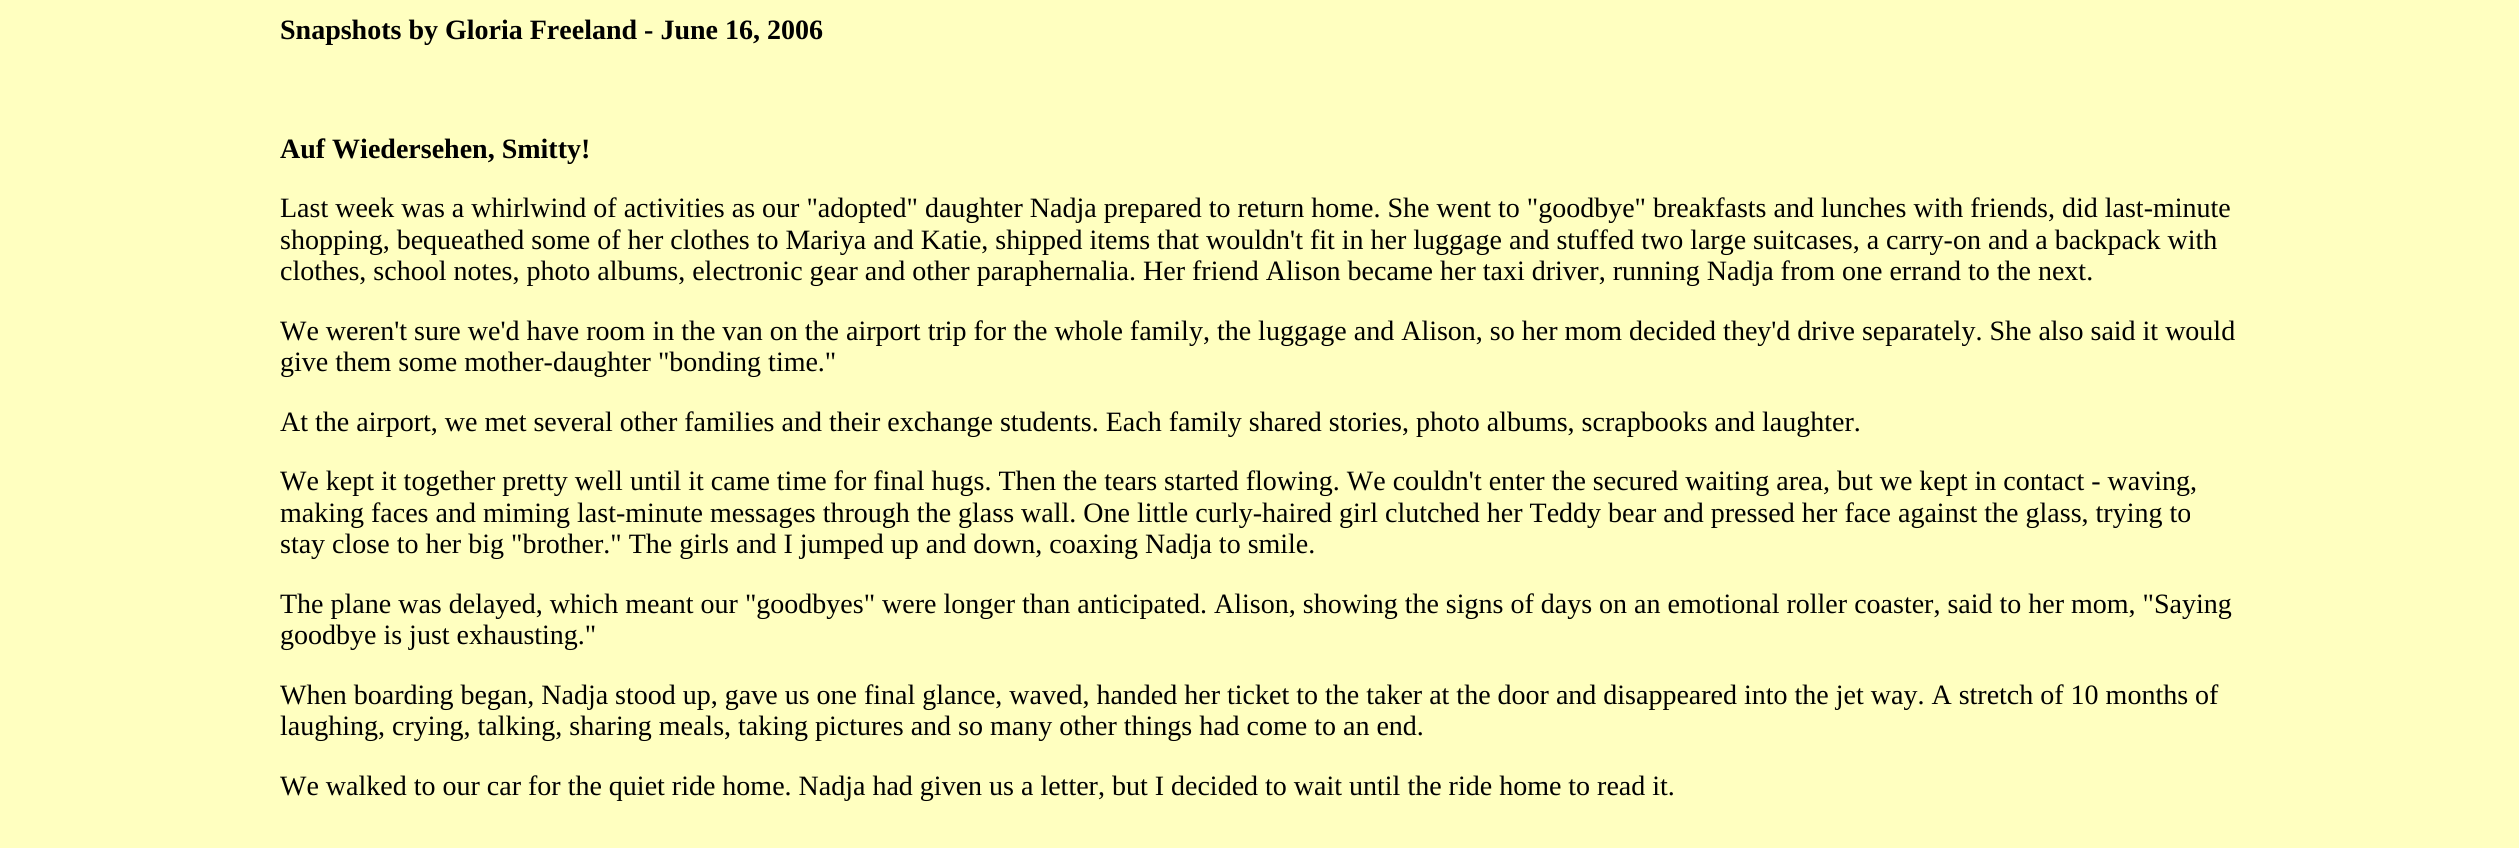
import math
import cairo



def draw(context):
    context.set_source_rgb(1, 1, 192 / 255)
    context.paint()
    context.select_font_face("Liberation Serif", cairo.FontSlant.NORMAL, cairo.FontWeight.BOLD)
    context.set_font_size(28)
    context.set_source_rgb(0, 0, 0)
    context.move_to(280, 39)
    context.show_text("Snapshots by Gloria Freeland - June 16, 2006")
    context.move_to(280, 158)
    context.show_text("Auf Wiedersehen, Smitty!")
    context.select_font_face("Liberation Serif")
    context.move_to(280, 217)
    context.show_text("Last week was a whirlwind of activities as our \"adopted\" daughter Nadja prepared to return home. She went to \"goodbye\" breakfasts and lunches with friends, did last-minute")
    context.move_to(280, 249)
    context.show_text("shopping, bequeathed some of her clothes to Mariya and Katie, shipped items that wouldn't fit in her luggage and stuffed two large suitcases, a carry-on and a backpack with")
    context.move_to(280, 280)
    context.show_text("clothes, school notes, photo albums, electronic gear and other paraphernalia. Her friend Alison became her taxi driver, running Nadja from one errand to the next.")
    context.move_to(280, 340)
    context.show_text("We weren't sure we'd have room in the van on the airport trip for the whole family, the luggage and Alison, so her mom decided they'd drive separately. She also said it would")
    context.move_to(280, 371)
    context.show_text("give them some mother-daughter \"bonding time.\"")
    context.move_to(280, 431)
    context.show_text("At the airport, we met several other families and their exchange students. Each family shared stories, photo albums, scrapbooks and laughter.")
    context.move_to(280, 490)
    context.show_text("We kept it together pretty well until it came time for final hugs. Then the tears started flowing. We couldn't enter the secured waiting area, but we kept in contact - waving,")
    context.move_to(280, 522)
    context.show_text("making faces and miming last-minute messages through the glass wall. One little curly-haired girl clutched her Teddy bear and pressed her face against the glass, trying to")
    context.move_to(280, 553)
    context.show_text("stay close to her big \"brother.\" The girls and I jumped up and down, coaxing Nadja to smile.")
    context.move_to(280, 613)
    context.show_text("The plane was delayed, which meant our \"goodbyes\" were longer than anticipated. Alison, showing the signs of days on an emotional roller coaster, said to her mom, \"Saying")
    context.move_to(280, 644)
    context.show_text("goodbye is just exhausting.\"")
    context.move_to(280, 704)
    context.show_text("When boarding began, Nadja stood up, gave us one final glance, waved, handed her ticket to the taker at the door and disappeared into the jet way. A stretch of 10 months of")
    context.move_to(280, 735)
    context.show_text("laughing, crying, talking, sharing meals, taking pictures and so many other things had come to an end.")
    context.move_to(280, 795)
    context.show_text("We walked to our car for the quiet ride home. Nadja had given us a letter, but I decided to wait until the ride home to read it.")


surface = cairo.ImageSurface(cairo.Format.RGB24, 2519, 848)
context = cairo.Context(surface)
options = cairo.FontOptions()
options.set_hint_metrics(cairo.HintMetrics.OFF)
options.set_hint_style(cairo.HintStyle.NONE)
context.set_font_options(options)
context.set_miter_limit(4)
draw(context)
surface.write_to_png("out.png")
